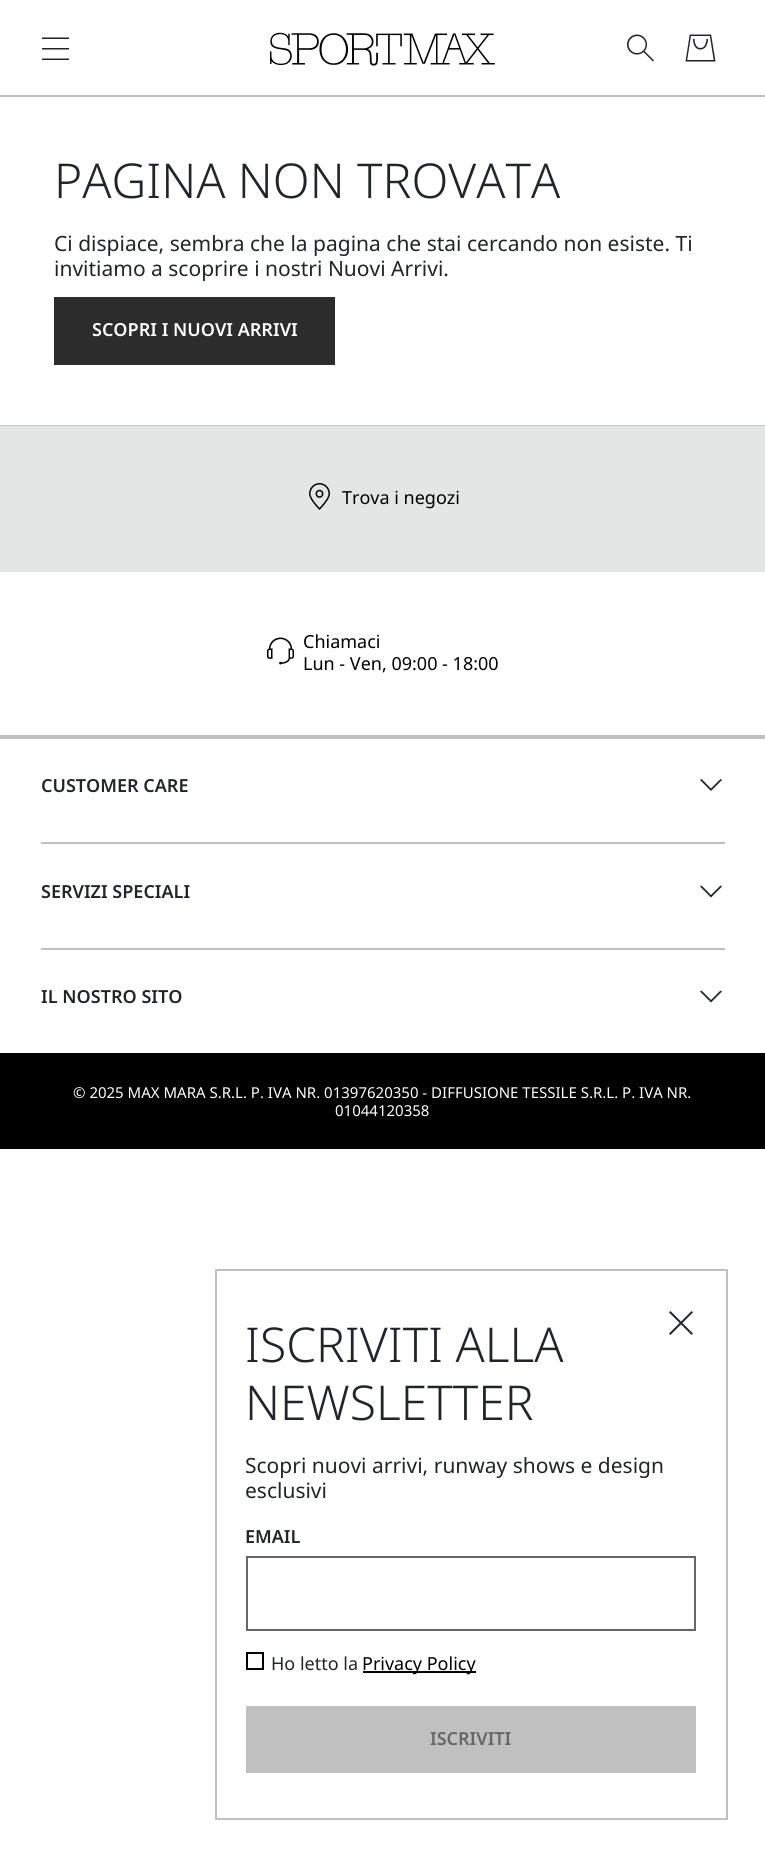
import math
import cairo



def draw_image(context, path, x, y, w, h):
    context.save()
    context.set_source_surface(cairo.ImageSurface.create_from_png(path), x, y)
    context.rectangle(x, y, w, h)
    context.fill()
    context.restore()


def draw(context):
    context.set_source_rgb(1, 1, 1)
    context.paint()
    draw_image(context, "images/1.png", 42, 37, 27, 23)
    draw_image(context, "images/2.png", 270, 32, 225, 34)
    draw_image(context, "images/3.png", 627, 34, 27, 28)
    draw_image(context, "images/4.png", 685, 34, 31, 28)
    context.set_source_rgb(192 / 255, 192 / 255, 192 / 255)
    context.rectangle(0, 95, 765, 2)
    context.fill()
    context.set_source_rgb(44 / 255, 44 / 255, 44 / 255)
    context.rectangle(54, 297, 281, 68)
    context.fill()
    context.set_source_rgb(192 / 255, 192 / 255, 192 / 255)
    context.rectangle(0, 425, 765, 1)
    context.fill()
    context.set_source_rgb(228 / 255, 230 / 255, 229 / 255)
    context.rectangle(0, 426, 765, 146)
    context.fill()
    draw_image(context, "images/5.png", 309, 483, 21, 27)
    draw_image(context, "images/6.png", 267, 637, 27, 28)
    context.set_source_rgb(192 / 255, 192 / 255, 192 / 255)
    context.rectangle(0, 735, 765, 4)
    context.fill()
    context.rectangle(41, 842, 684, 2)
    context.fill()
    context.set_source_rgb(33 / 255, 37 / 255, 41 / 255)
    context.new_path()
    context.move_to(711, 788.5)
    context.line_to(701.5, 779)
    context.line_to(700, 780)
    context.line_to(711, 791)
    context.line_to(722, 780)
    context.line_to(720.5, 779)
    context.close_path()
    context.fill()
    context.set_source_rgb(192 / 255, 192 / 255, 192 / 255)
    context.rectangle(41, 948, 684, 2)
    context.fill()
    context.set_source_rgb(33 / 255, 37 / 255, 41 / 255)
    context.new_path()
    context.move_to(711, 895)
    context.line_to(701.5, 885.5)
    context.line_to(700, 886.5)
    context.line_to(711, 897.5)
    context.line_to(722, 886.5)
    context.line_to(720.5, 885.5)
    context.close_path()
    context.fill()
    context.new_path()
    context.move_to(711, 1000)
    context.line_to(701.5, 990.5)
    context.line_to(700, 991.5)
    context.line_to(711, 1002.5)
    context.line_to(722, 991.5)
    context.line_to(720.5, 990.5)
    context.close_path()
    context.fill()
    context.set_source_rgb(0, 0, 0)
    context.rectangle(0, 1053, 765, 96)
    context.fill()
    context.rectangle(216, 1270, 511, 549)
    context.set_source_rgb(192 / 255, 192 / 255, 192 / 255)
    context.stroke()
    draw_image(context, "images/7.png", 669, 1311, 24, 24)
    context.rectangle(247, 1557, 448, 73)
    context.set_source_rgb(102 / 255, 102 / 255, 102 / 255)
    context.stroke()
    context.rectangle(247, 1653, 16, 16)
    context.set_source_rgb(0, 0, 0)
    context.stroke()
    context.rectangle(363, 1671, 113, 2)
    context.fill()
    context.set_source_rgb(192 / 255, 192 / 255, 192 / 255)
    context.rectangle(246, 1706, 450, 67)
    context.fill()
    context.select_font_face("Noto Sans Light")
    context.set_font_size(48)
    context.set_source_rgb(33 / 255, 37 / 255, 41 / 255)
    context.move_to(54, 198)
    context.show_text("PAGINA NON TROVATA")
    context.select_font_face("Noto Sans")
    context.set_font_size(21)
    context.move_to(54, 251)
    context.show_text("Ci dispiace, sembra che la pagina che stai cercando non esiste. Ti")
    context.move_to(54, 276)
    context.show_text("invitiamo a scoprire i nostri Nuovi Arrivi.")
    context.select_font_face("Noto Sans SemiBold")
    context.set_font_size(18)
    context.set_source_rgb(1, 1, 1)
    context.move_to(92, 336)
    context.show_text("SCOPRI I NUOVI ARRIVI")
    context.select_font_face("Noto Sans")
    context.set_source_rgb(0, 0, 0)
    context.move_to(342, 504)
    context.show_text("Trova i negozi")
    context.move_to(303, 648)
    context.show_text("Chiamaci")
    context.move_to(303, 670)
    context.show_text("Lun - Ven, 09:00 - 18:00")
    context.select_font_face("Noto Sans SemiBold")
    context.set_source_rgb(33 / 255, 37 / 255, 41 / 255)
    context.move_to(41, 792)
    context.show_text("CUSTOMER CARE")
    context.move_to(41, 898)
    context.show_text("SERVIZI SPECIALI")
    context.move_to(41, 1003)
    context.show_text("IL NOSTRO SITO")
    context.select_font_face("Noto Sans")
    context.set_font_size(15)
    context.set_source_rgb(1, 1, 1)
    context.move_to(73, 1098)
    context.show_text("© 2025 MAX MARA S.R.L. P. IVA NR. 01397620350 - DIFFUSIONE TESSILE S.R.L. P. IVA NR.")
    context.move_to(335, 1116)
    context.show_text("01044120358")
    context.select_font_face("Noto Sans Light")
    context.set_font_size(48)
    context.set_source_rgb(33 / 255, 37 / 255, 41 / 255)
    context.move_to(245, 1362)
    context.show_text("ISCRIVITI ALLA")
    context.move_to(245, 1420)
    context.show_text("NEWSLETTER")
    context.select_font_face("Noto Sans")
    context.set_font_size(21)
    context.move_to(245, 1473)
    context.show_text("Scopri nuovi arrivi, runway shows e design")
    context.move_to(245, 1498)
    context.show_text("esclusivi")
    context.select_font_face("Noto Sans SemiBold")
    context.set_font_size(18)
    context.move_to(245, 1543)
    context.show_text("EMAIL")
    context.select_font_face("Noto Sans")
    context.move_to(271, 1670)
    context.show_text("Ho letto la")
    context.set_source_rgb(0, 0, 0)
    context.move_to(362, 1670)
    context.show_text("Privacy Policy")
    context.select_font_face("Noto Sans SemiBold")
    context.set_source_rgb(102 / 255, 102 / 255, 102 / 255)
    context.move_to(430, 1745)
    context.show_text("ISCRIVITI")


surface = cairo.ImageSurface(cairo.Format.RGB24, 765, 1849)
context = cairo.Context(surface)
options = cairo.FontOptions()
options.set_hint_metrics(cairo.HintMetrics.OFF)
options.set_hint_style(cairo.HintStyle.NONE)
context.set_font_options(options)
context.set_miter_limit(4)
draw(context)
surface.write_to_png("out.png")
